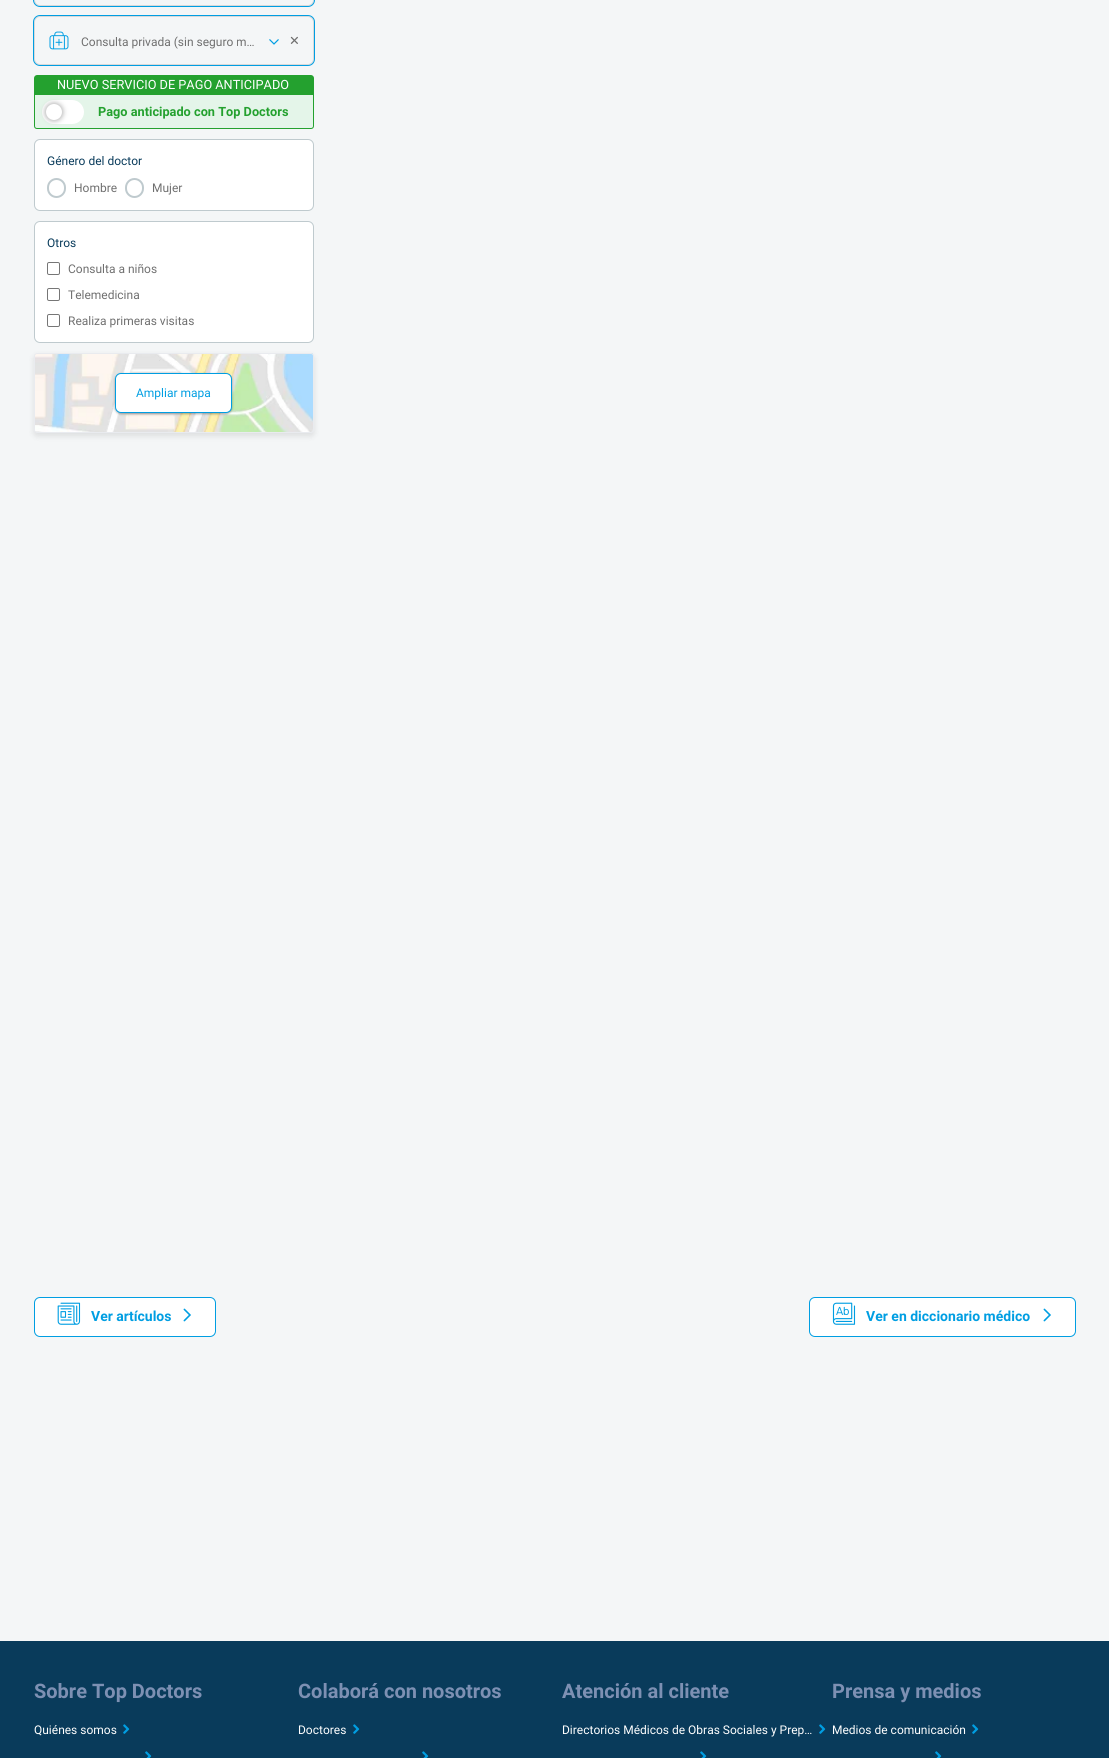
import math
import cairo



def rounded_rect(context, x, y, w, h, r):
    context.new_sub_path()
    for i, (u, v) in enumerate([(x + w - r, y + h - r), (x + r, y + h - r), (x + r, y + r), (x + w - r, y + r)]):
        context.arc(u, v, r, i * math.pi / 2, (i + 1) * math.pi / 2)
    context.close_path()


def draw_shadow(context, x, y, w, h, r, blur, alpha):
    context.push_group_with_content(cairo.Content.ALPHA)
    context.set_operator(cairo.Operator.SOURCE)
    for i in range(15, -16, -2):
        e = blur * i / 6
        if min(w, h) + 2 * e > 0:
            context.set_source_rgba(0, 0, 0, alpha * math.erfc((i - 1) / 8.5) / 2)
            rounded_rect(context, x - e, y - e, w + 2 * e, h + 2 * e, max(0, min(r + e + blur * .6, min(w, h) / 2 + e)))
            context.fill()
    context.mask(context.pop_group())


def draw_image(context, path, x, y, w, h):
    context.save()
    context.set_source_surface(cairo.ImageSurface.create_from_png(path), x, y)
    context.rectangle(x, y, w, h)
    context.fill()
    context.restore()


def draw(context):
    context.set_source_rgb(244 / 255, 246 / 255, 247 / 255)
    context.paint()
    rounded_rect(context, 34.5, -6.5, 279, 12, 5.5)
    context.set_source_rgb(217 / 255, 217 / 255, 217 / 255)
    context.set_line_width(1)
    context.stroke()
    rounded_rect(context, 33.5, -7.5, 281, 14, 6.5)
    context.set_source_rgb(0, 158 / 255, 226 / 255)
    context.stroke()
    rounded_rect(context, 34.5, 16.5, 279, 48, 5.5)
    context.set_source_rgb(217 / 255, 217 / 255, 217 / 255)
    context.stroke()
    draw_image(context, "images/2.png", 269, 39, 10, 6)
    draw_image(context, "images/3.png", 290, 36, 8, 8)
    rounded_rect(context, 33.5, 15.5, 281, 50, 6.5)
    context.set_source_rgb(0, 158 / 255, 226 / 255)
    context.stroke()
    draw_image(context, "images/1.png", 49, 31, 20, 19)
    context.set_source_rgb(36 / 255, 161 / 255, 47 / 255)
    context.new_path()
    context.move_to(37, 75)
    context.line_to(311, 75)
    context.curve_to(312.5, 75, 314, 76.5, 314, 78)
    context.line_to(314, 94)
    context.line_to(34, 94)
    context.line_to(34, 78)
    context.curve_to(34, 76.5, 35.5, 75, 37, 75)
    context.close_path()
    context.fill()
    context.set_source_rgb(228 / 255, 245 / 255, 233 / 255)
    context.new_path()
    context.move_to(34.5, 94.5)
    context.line_to(313.5, 94.5)
    context.line_to(313.5, 126)
    context.curve_to(313.5, 127.5, 312.5, 128.5, 311, 128.5)
    context.line_to(37, 128.5)
    context.curve_to(35.5, 128.5, 34.5, 127.5, 34.5, 126)
    context.close_path()
    context.fill_preserve()
    context.set_source_rgb(36 / 255, 161 / 255, 47 / 255)
    context.stroke()
    context.set_source_rgb(1, 1, 1)
    rounded_rect(context, 42, 100, 42, 24, 12)
    context.fill()
    context.set_source_rgb(181 / 255, 181 / 255, 181 / 255)
    draw_shadow(context, 45, 103, 18, 18, 9, 2.5, 1)
    context.set_source_rgb(1, 1, 1)
    context.arc(54, 112, 8, 0, 2 * math.pi)
    context.fill()
    rounded_rect(context, 34.5, 139.5, 279, 71, 5.5)
    context.fill_preserve()
    context.set_source_rgb(191 / 255, 202 / 255, 206 / 255)
    context.stroke()
    rounded_rect(context, 48, 179, 17, 18, 8.5)
    context.set_line_width(2)
    context.stroke()
    rounded_rect(context, 126, 179, 17, 18, 8.5)
    context.stroke()
    context.set_source_rgb(1, 1, 1)
    rounded_rect(context, 34.5, 221.5, 279, 121, 5.5)
    context.fill_preserve()
    context.set_source_rgb(191 / 255, 202 / 255, 206 / 255)
    context.set_line_width(1)
    context.stroke()
    rounded_rect(context, 47.5, 262.5, 12, 12, 1.5)
    context.set_source_rgb(118 / 255, 118 / 255, 118 / 255)
    context.stroke()
    rounded_rect(context, 47.5, 288.5, 12, 12, 1.5)
    context.stroke()
    rounded_rect(context, 47.5, 314.5, 12, 12, 1.5)
    context.stroke()
    context.set_source_rgb(0, 0, 0)
    draw_shadow(context, 34, 356, 280, 80, 3, 3, 0.1)
    draw_image(context, "images/4.png", 35, 353, 278, 80)
    rounded_rect(context, 34.5, 353.5, 279, 79, 2.5)
    context.set_source_rgb(233 / 255, 235 / 255, 239 / 255)
    context.stroke()
    context.set_source_rgb(0, 0, 0)
    draw_shadow(context, 115, 374, 117, 40, 6, 1, 0.24)
    draw_shadow(context, 115, 374, 117, 40, 6, 1.5, 0.12)
    context.set_source_rgb(1, 1, 1)
    rounded_rect(context, 115.5, 373.5, 116, 39, 5.5)
    context.fill_preserve()
    context.set_source_rgb(0, 158 / 255, 226 / 255)
    context.stroke()
    context.set_source_rgb(1, 1, 1)
    rounded_rect(context, 34.5, 1297.5, 181, 39, 5.5)
    context.fill_preserve()
    context.set_source_rgb(0, 158 / 255, 226 / 255)
    context.stroke()
    draw_image(context, "images/5.png", 57, 1302, 24, 23)
    draw_image(context, "images/6.png", 183, 1308, 8, 14)
    context.set_source_rgb(1, 1, 1)
    rounded_rect(context, 809.5, 1297.5, 266, 39, 5.5)
    context.fill_preserve()
    context.set_source_rgb(0, 158 / 255, 226 / 255)
    context.stroke()
    draw_image(context, "images/7.png", 832, 1302, 24, 23)
    draw_image(context, "images/6.png", 1043, 1308, 8, 14)
    context.set_source_rgb(9 / 255, 59 / 255, 91 / 255)
    context.rectangle(0, 1641, 1109, 117)
    context.fill()
    draw_image(context, "images/8.png", 123, 1724, 7, 10)
    draw_image(context, "images/9.png", 145, 1751, 7, 7)
    draw_image(context, "images/8.png", 353, 1724, 7, 10)
    draw_image(context, "images/9.png", 422, 1751, 7, 7)
    draw_image(context, "images/8.png", 819, 1724, 7, 10)
    draw_image(context, "images/9.png", 700, 1751, 7, 7)
    draw_image(context, "images/8.png", 972, 1724, 7, 10)
    draw_image(context, "images/9.png", 935, 1751, 7, 7)
    context.select_font_face("Roboto")
    context.set_font_size(12)
    context.set_source_rgb(111 / 255, 111 / 255, 111 / 255)
    context.move_to(81, 46)
    context.show_text("Consulta privada (sin seguro")
    context.move_to(236, 46)
    context.show_text("m…")
    context.set_source_rgb(244 / 255, 246 / 255, 247 / 255)
    context.rectangle(236, 39, 1, 7)
    context.fill()
    context.set_font_size(12.75)
    context.set_source_rgb(1, 1, 1)
    context.move_to(57, 89)
    context.show_text("NUEVO SERVICIO DE PAGO ANTICIPADO")
    context.select_font_face("Roboto", cairo.FontSlant.NORMAL, cairo.FontWeight.BOLD)
    context.set_source_rgb(36 / 255, 161 / 255, 47 / 255)
    context.move_to(98, 116)
    context.show_text("Pago anticipado con Top Doctors")
    context.select_font_face("Roboto")
    context.set_font_size(12)
    context.set_source_rgb(9 / 255, 59 / 255, 91 / 255)
    context.move_to(47, 165)
    context.show_text("Género del doctor")
    context.set_source_rgb(111 / 255, 111 / 255, 111 / 255)
    context.move_to(74, 192)
    context.show_text("Hombre")
    context.move_to(152, 192)
    context.show_text("Mujer")
    context.set_source_rgb(9 / 255, 59 / 255, 91 / 255)
    context.move_to(47, 247)
    context.show_text("Otros")
    context.set_source_rgb(111 / 255, 111 / 255, 111 / 255)
    context.move_to(68, 273)
    context.show_text("Consulta a niños")
    context.move_to(68, 299)
    context.show_text("Telemedicina")
    context.move_to(68, 325)
    context.show_text("Realiza primeras visitas")
    context.set_source_rgb(0, 158 / 255, 226 / 255)
    context.move_to(136, 397)
    context.show_text("Ampliar mapa")
    context.select_font_face("Roboto", cairo.FontSlant.NORMAL, cairo.FontWeight.BOLD)
    context.set_font_size(14)
    context.move_to(91, 1321)
    context.show_text("Ver artículos")
    context.move_to(866, 1321)
    context.show_text("Ver en diccionario médico")
    context.set_font_size(20)
    context.set_source_rgb(125 / 255, 144 / 255, 179 / 255)
    context.move_to(34, 1698)
    context.show_text("Sobre Top Doctors")
    context.select_font_face("Roboto")
    context.set_font_size(12)
    context.set_source_rgb(1, 1, 1)
    context.move_to(34, 1734)
    context.show_text("Quiénes somos")
    context.select_font_face("Roboto", cairo.FontSlant.NORMAL, cairo.FontWeight.BOLD)
    context.set_font_size(20)
    context.set_source_rgb(125 / 255, 144 / 255, 179 / 255)
    context.move_to(298, 1698)
    context.show_text("Colaborá con nosotros")
    context.select_font_face("Roboto")
    context.set_font_size(12)
    context.set_source_rgb(1, 1, 1)
    context.move_to(298, 1734)
    context.show_text("Doctores")
    context.select_font_face("Roboto", cairo.FontSlant.NORMAL, cairo.FontWeight.BOLD)
    context.set_font_size(20)
    context.set_source_rgb(125 / 255, 144 / 255, 179 / 255)
    context.move_to(562, 1698)
    context.show_text("Atención al cliente")
    context.select_font_face("Roboto")
    context.set_font_size(12)
    context.set_source_rgb(1, 1, 1)
    context.move_to(562, 1734)
    context.show_text("Directorios Médicos de Obras Sociales y Prep…")
    context.select_font_face("Roboto", cairo.FontSlant.NORMAL, cairo.FontWeight.BOLD)
    context.set_font_size(20)
    context.set_source_rgb(125 / 255, 144 / 255, 179 / 255)
    context.move_to(832, 1698)
    context.show_text("Prensa y medios")
    context.select_font_face("Roboto")
    context.set_font_size(12)
    context.set_source_rgb(1, 1, 1)
    context.move_to(832, 1734)
    context.show_text("Medios de comunicación")


surface = cairo.ImageSurface(cairo.Format.RGB24, 1109, 1758)
context = cairo.Context(surface)
options = cairo.FontOptions()
options.set_hint_metrics(cairo.HintMetrics.OFF)
options.set_hint_style(cairo.HintStyle.NONE)
context.set_font_options(options)
context.set_miter_limit(4)
draw(context)
surface.write_to_png("out.png")
